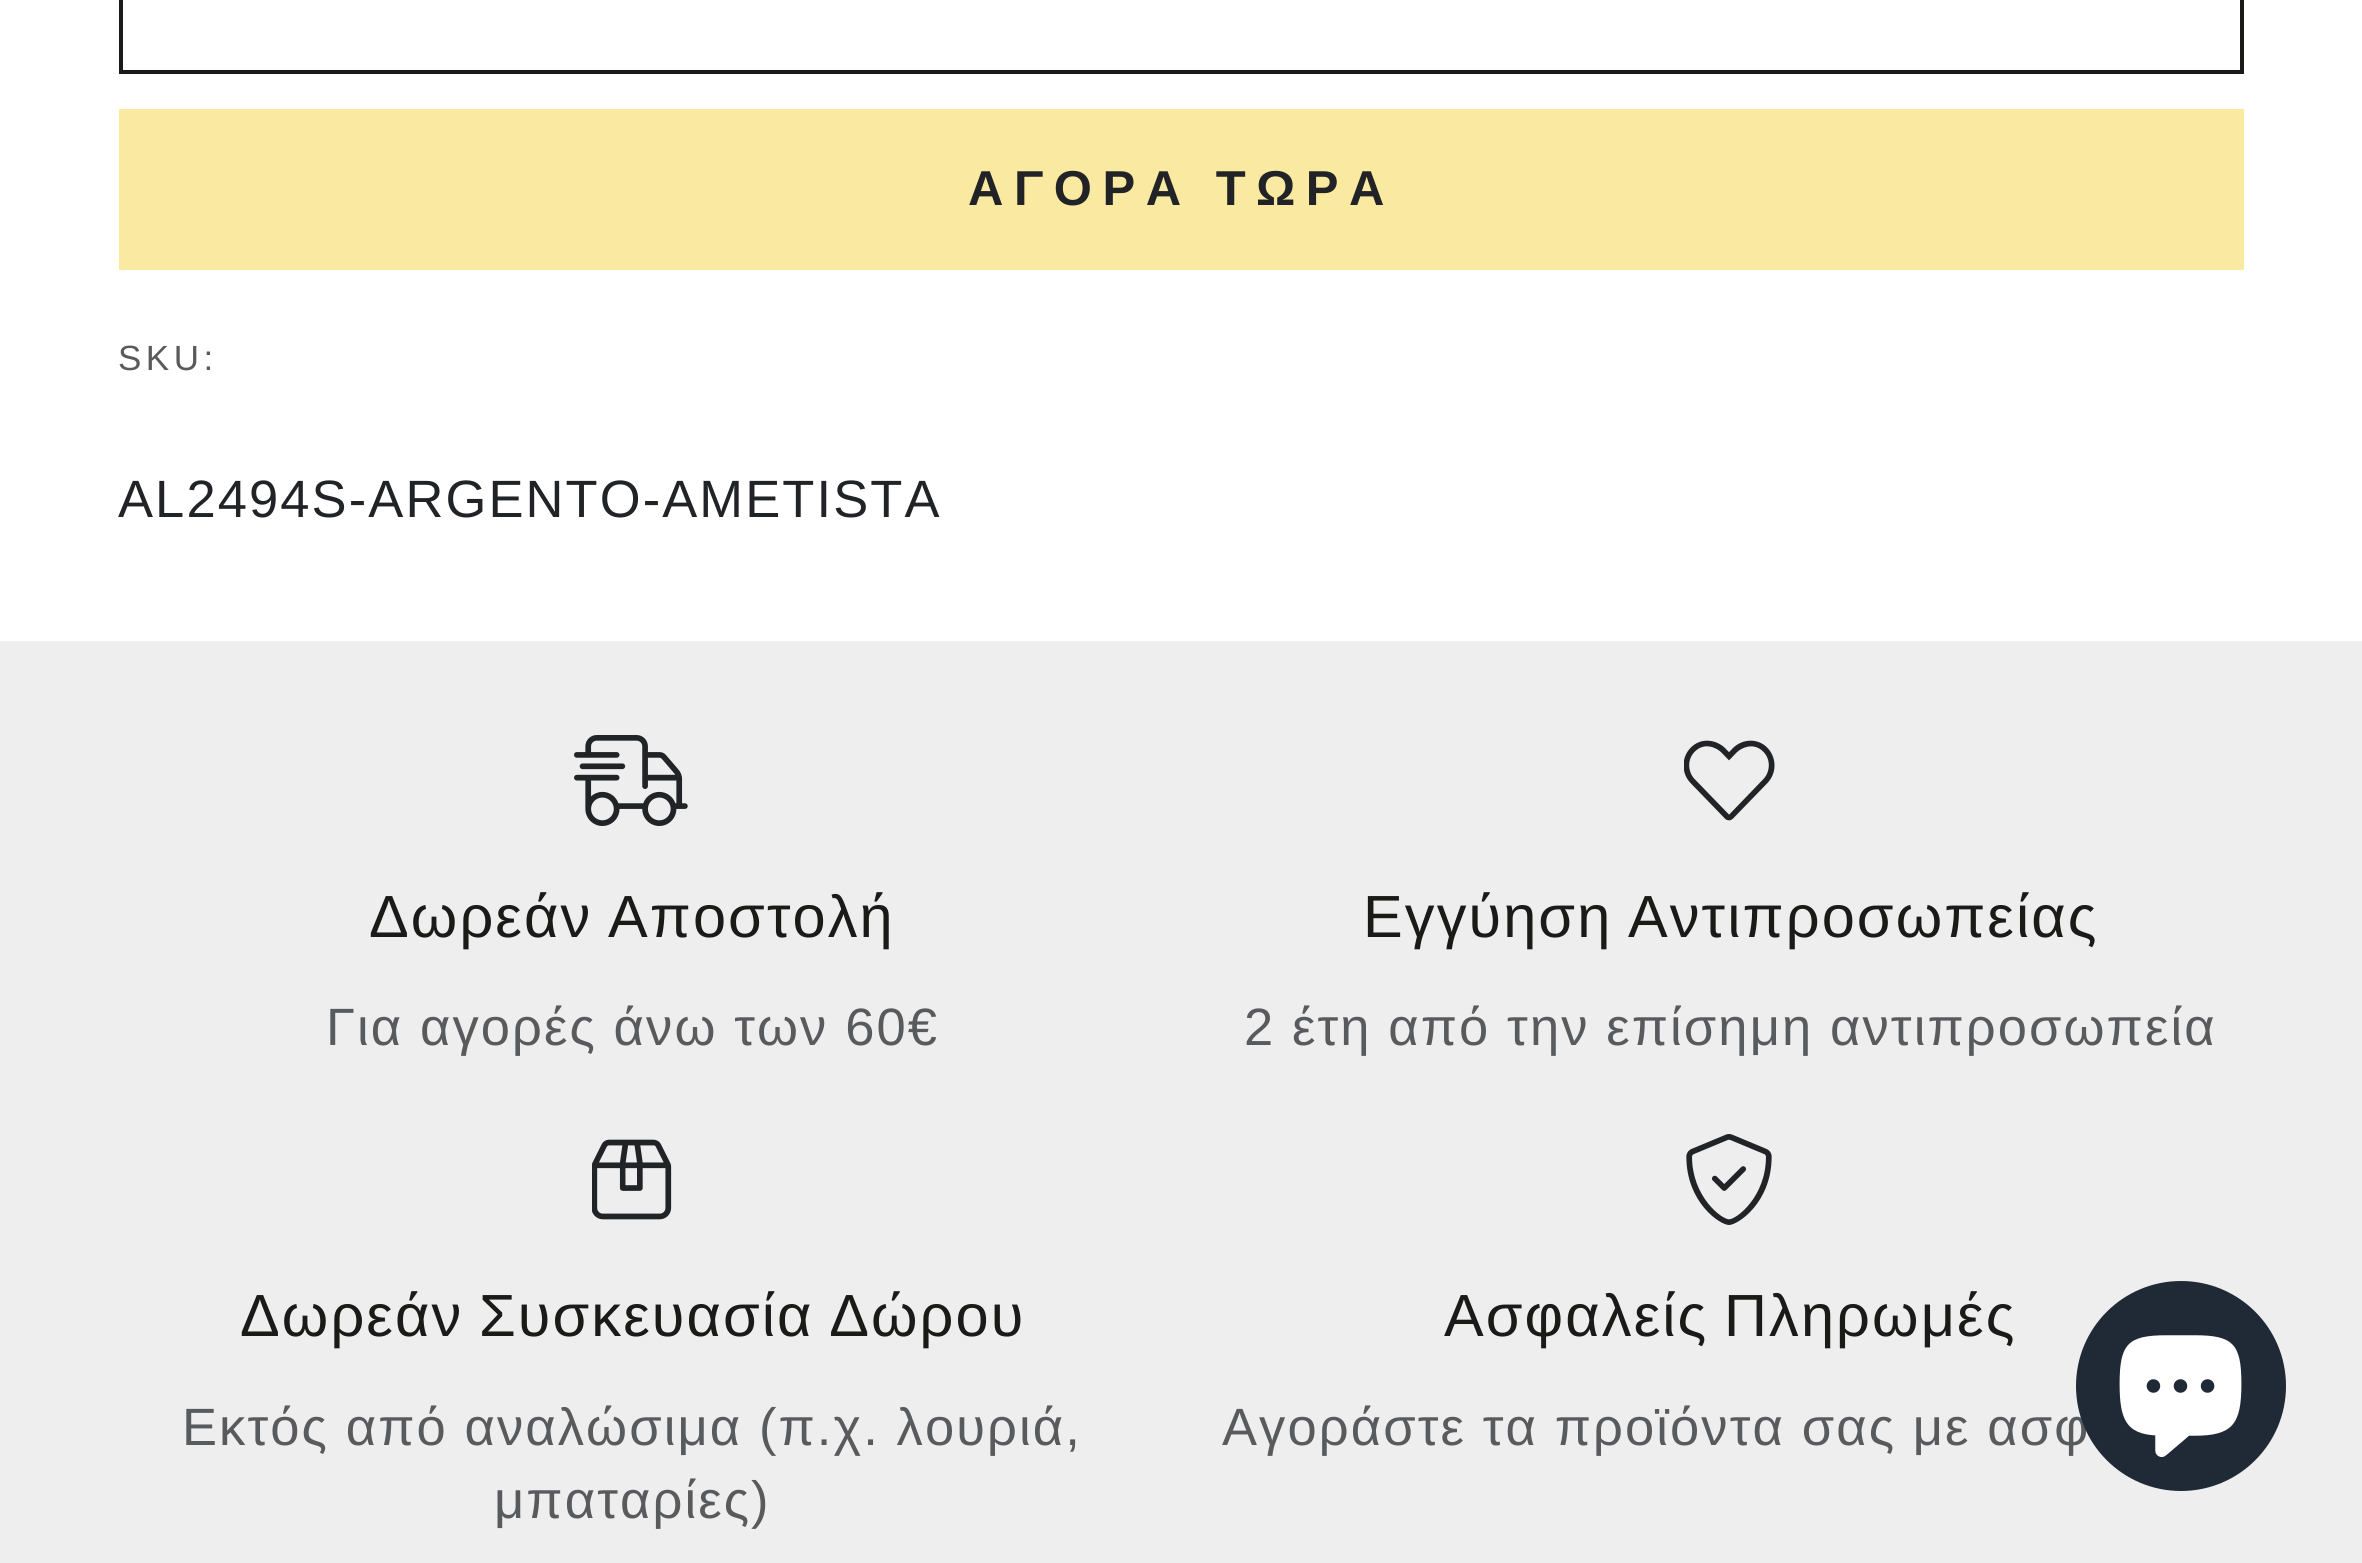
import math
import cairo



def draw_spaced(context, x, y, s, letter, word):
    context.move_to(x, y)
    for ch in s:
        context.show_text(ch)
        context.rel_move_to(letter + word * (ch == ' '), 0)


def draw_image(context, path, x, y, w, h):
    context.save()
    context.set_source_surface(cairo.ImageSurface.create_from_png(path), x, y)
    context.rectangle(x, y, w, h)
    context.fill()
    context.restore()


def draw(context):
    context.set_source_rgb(1, 1, 1)
    context.paint()
    context.rectangle(121, -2, 2121, 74)
    context.set_source_rgb(26 / 255, 27 / 255, 24 / 255)
    context.set_line_width(4)
    context.stroke()
    context.set_source_rgb(250 / 255, 234 / 255, 161 / 255)
    context.rectangle(119, 109, 2125, 161)
    context.fill()
    context.set_source_rgb(238 / 255, 238 / 255, 239 / 255)
    context.rectangle(0, 641, 2362, 922)
    context.fill()
    draw_image(context, "images/1.png", 574, 735, 114, 91)
    draw_image(context, "images/2.png", 1684, 740, 91, 81)
    draw_image(context, "images/3.png", 592, 1139, 80, 81)
    draw_image(context, "images/4.png", 1686, 1134, 86, 91)
    context.select_font_face("Liberation Sans", cairo.FontSlant.NORMAL, cairo.FontWeight.BOLD)
    context.set_font_size(49)
    context.set_source_rgb(33 / 255, 35 / 255, 38 / 255)
    draw_spaced(context, 968, 205, "ΑΓΟΡΑ ΤΩΡΑ", 10.5, 0)
    context.select_font_face("Liberation Sans")
    context.set_font_size(35)
    context.set_source_rgb(89 / 255, 90 / 255, 92 / 255)
    draw_spaced(context, 118, 370, "SKU:", 4.5, 0)
    context.set_font_size(52.5)
    context.set_source_rgb(33 / 255, 35 / 255, 38 / 255)
    draw_spaced(context, 118, 517, "AL2494S-ARGENTO-AMETISTA", 2.1, 0)
    context.set_font_size(59.5)
    context.set_source_rgb(26 / 255, 27 / 255, 24 / 255)
    draw_spaced(context, 369, 937, "Δωρεάν Αποστολή", 2.1, -3)
    context.set_font_size(52.5)
    context.set_source_rgb(89 / 255, 90 / 255, 92 / 255)
    draw_spaced(context, 326, 1045, "Για αγορές άνω των 60€", 2.1, 0)
    context.set_font_size(59.5)
    context.set_source_rgb(26 / 255, 27 / 255, 24 / 255)
    draw_spaced(context, 1363, 937, "Εγγύηση Αντιπροσωπείας", 2.1, -3)
    context.set_font_size(52.5)
    context.set_source_rgb(89 / 255, 90 / 255, 92 / 255)
    draw_spaced(context, 1244, 1045, "2 έτη από την επίσημη αντιπροσωπεία", 2.1, 0)
    context.set_font_size(59.5)
    context.set_source_rgb(26 / 255, 27 / 255, 24 / 255)
    draw_spaced(context, 240, 1336, "Δωρεάν Συσκευασία Δώρου", 2.1, -3)
    context.set_font_size(52.5)
    context.set_source_rgb(89 / 255, 90 / 255, 92 / 255)
    draw_spaced(context, 182, 1445, "Εκτός από αναλώσιμα (π.χ. λουριά,", 2.1, 0)
    draw_spaced(context, 494, 1518, "μπαταρίες)", 2.1, 0)
    context.set_font_size(59.5)
    context.set_source_rgb(26 / 255, 27 / 255, 24 / 255)
    draw_spaced(context, 1444, 1336, "Ασφαλείς Πληρωμές", 2.1, -3)
    context.set_font_size(52.5)
    context.set_source_rgb(89 / 255, 90 / 255, 92 / 255)
    draw_spaced(context, 1222, 1445, "Αγοράστε τα προϊόντα σας με ασφ", 2.1, 0)
    context.set_source_rgb(32 / 255, 42 / 255, 54 / 255)
    context.new_path()
    context.arc(2181, 1386, 105, 0, 2 * math.pi)
    context.fill()
    draw_image(context, "images/5.png", 2119, 1335, 123, 122)


surface = cairo.ImageSurface(cairo.Format.RGB24, 2362, 1563)
context = cairo.Context(surface)
options = cairo.FontOptions()
options.set_hint_metrics(cairo.HintMetrics.OFF)
options.set_hint_style(cairo.HintStyle.NONE)
context.set_font_options(options)
context.set_miter_limit(4)
draw(context)
surface.write_to_png("out.png")
